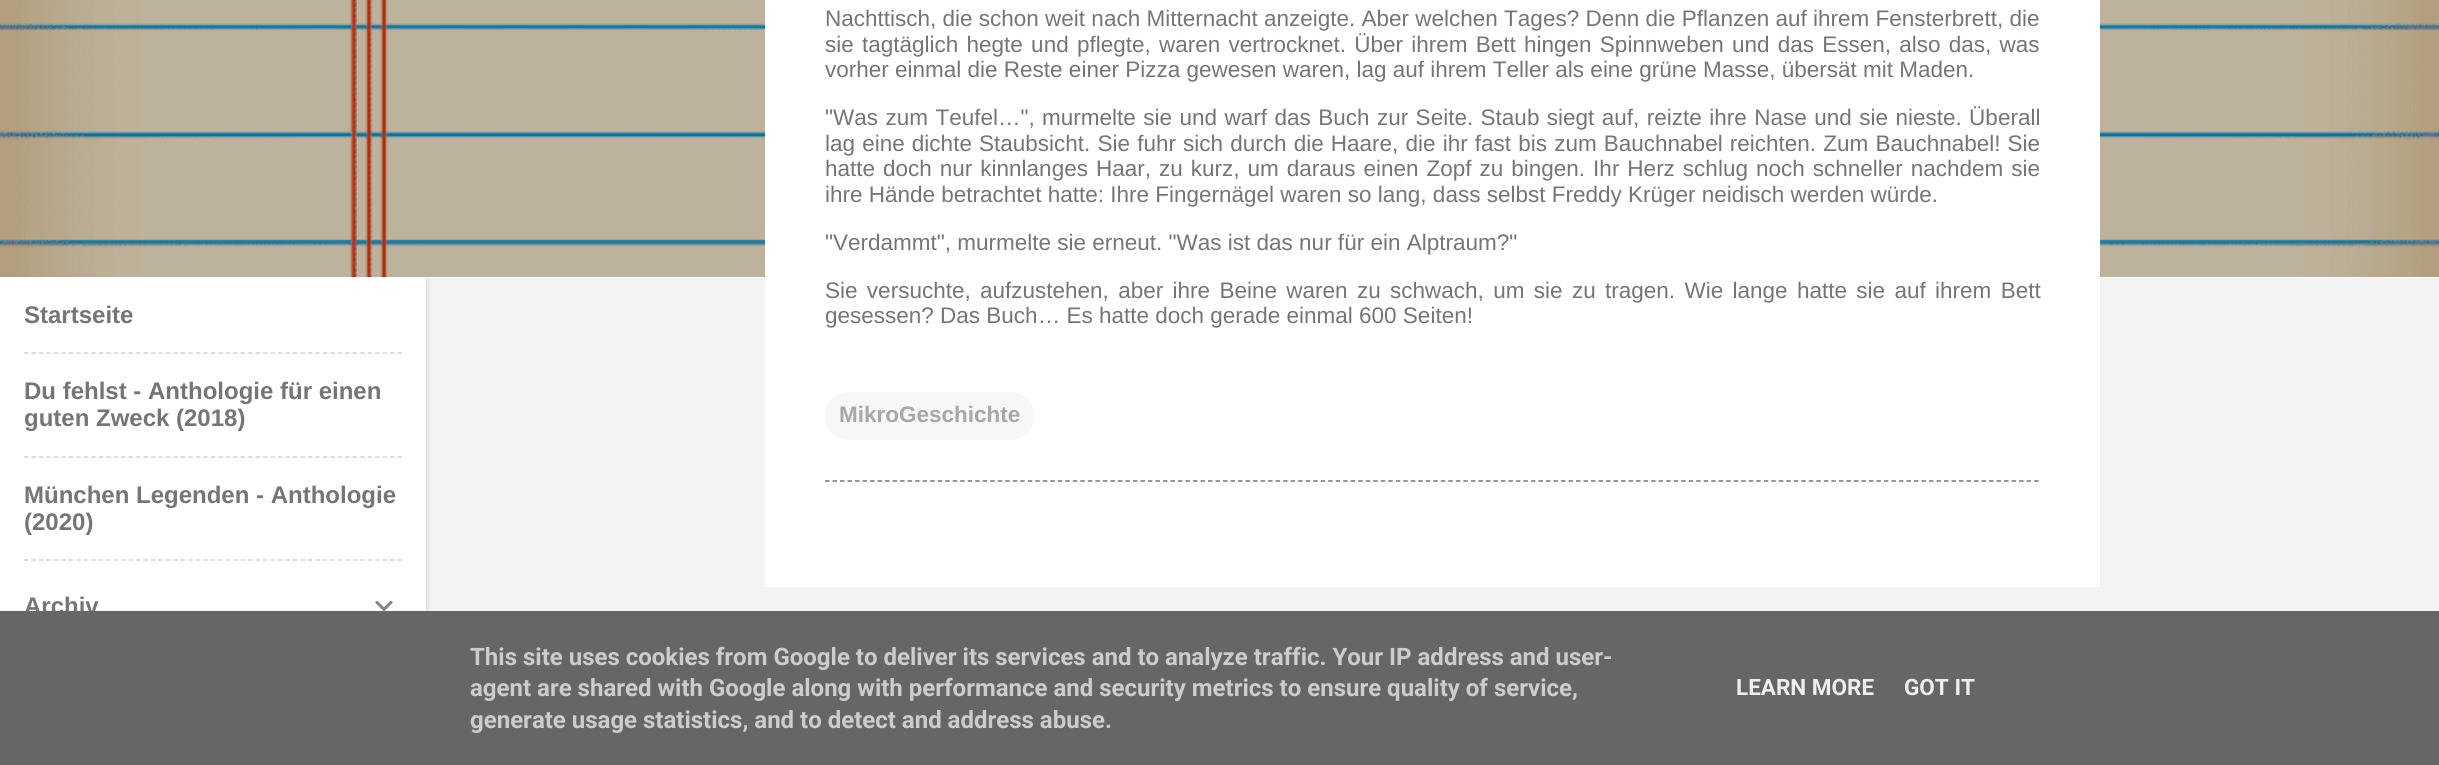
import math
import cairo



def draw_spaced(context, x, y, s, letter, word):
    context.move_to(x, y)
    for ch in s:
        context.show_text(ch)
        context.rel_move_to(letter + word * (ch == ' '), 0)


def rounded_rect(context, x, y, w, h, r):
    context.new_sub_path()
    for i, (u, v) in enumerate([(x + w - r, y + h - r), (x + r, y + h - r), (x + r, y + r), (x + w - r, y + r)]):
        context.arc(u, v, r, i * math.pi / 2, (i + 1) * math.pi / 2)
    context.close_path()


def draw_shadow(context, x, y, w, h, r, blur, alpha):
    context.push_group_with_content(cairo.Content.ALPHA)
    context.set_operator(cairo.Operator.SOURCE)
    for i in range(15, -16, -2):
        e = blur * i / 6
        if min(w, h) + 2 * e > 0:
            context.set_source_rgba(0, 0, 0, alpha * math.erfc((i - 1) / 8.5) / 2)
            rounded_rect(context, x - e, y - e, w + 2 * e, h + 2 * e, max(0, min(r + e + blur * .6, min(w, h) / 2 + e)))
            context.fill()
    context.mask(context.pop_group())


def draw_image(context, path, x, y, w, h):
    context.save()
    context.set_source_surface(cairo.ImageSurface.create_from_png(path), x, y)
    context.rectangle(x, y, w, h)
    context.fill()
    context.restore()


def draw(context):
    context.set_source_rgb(243 / 255, 243 / 255, 243 / 255)
    context.paint()
    context.set_source_rgb(1, 1, 1)
    context.rectangle(0, 277, 2439, 1)
    context.fill()
    draw_image(context, "images/1.png", 0, 0, 2439, 277)
    context.rectangle(765, 0, 1335, 587)
    context.fill()
    context.set_source_rgb(247 / 255, 247 / 255, 247 / 255)
    rounded_rect(context, 825, 392, 209, 48, 23)
    context.fill()
    context.new_path()
    context.move_to(825, 481)
    context.line_to(2040, 481)
    context.set_source_rgb(117 / 255, 117 / 255, 117 / 255)
    context.set_line_width(1.5)
    context.set_dash([4.5, 3.01])
    context.stroke()
    context.set_source_rgb(0, 0, 0)
    draw_shadow(context, 2, 279, 426, 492, 0, 2, 0.1)
    context.set_source_rgb(1, 1, 1)
    context.rectangle(0, 278, 426, 333)
    context.fill()
    context.new_path()
    context.move_to(24, 353)
    context.line_to(402, 353)
    context.set_source_rgb(211 / 255, 211 / 255, 211 / 255)
    context.set_dash([4.5, 2.97])
    context.stroke()
    context.new_path()
    context.move_to(24, 457)
    context.line_to(402, 457)
    context.stroke()
    context.new_path()
    context.move_to(24, 560)
    context.line_to(402, 560)
    context.stroke()
    draw_image(context, "images/2.png", 375, 600, 18, 11)
    context.select_font_face("Liberation Sans")
    context.set_font_size(22.5)
    context.set_source_rgb(117 / 255, 117 / 255, 117 / 255)
    context.move_to(825, 26)
    context.show_text("Nachttisch, die schon weit nach Mitternacht anzeigte. Aber welchen Tages? Denn die Pflanzen auf ihrem Fensterbrett, die")
    draw_spaced(context, 825, 52, "sie tagtäglich hegte und pflegte, waren vertrocknet. Über ihrem Bett hingen Spinnweben und das Essen, also das, was", 0, 2)
    context.move_to(825, 77)
    context.show_text("vorher einmal die Reste einer Pizza gewesen waren, lag auf ihrem Teller als eine grüne Masse, übersät mit Maden.")
    draw_spaced(context, 825, 125, "\"Was zum Teufel…\", murmelte sie und warf das Buch zur Seite. Staub siegt auf, reizte ihre Nase und sie nieste. Überall", 0, 1.2)
    draw_spaced(context, 825, 151, "lag eine dichte Staubsicht. Sie fuhr sich durch die Haare, die ihr fast bis zum Bauchnabel reichten. Zum Bauchnabel! Sie", 0, 0.9)
    draw_spaced(context, 825, 176, "hatte doch nur kinnlanges Haar, zu kurz, um daraus einen Zopf zu bingen. Ihr Herz schlug noch schneller nachdem sie", 0, 1.75)
    context.move_to(825, 202)
    context.show_text("ihre Hände betrachtet hatte: Ihre Fingernägel waren so lang, dass selbst Freddy Krüger neidisch werden würde.")
    context.move_to(825, 250)
    context.show_text("\"Verdammt\", murmelte sie erneut. \"Was ist das nur für ein Alptraum?\"")
    draw_spaced(context, 825, 298, "Sie versuchte, aufzustehen, aber ihre Beine waren zu schwach, um sie zu tragen. Wie lange hatte sie auf ihrem Bett", 0, 3.1)
    context.move_to(825, 323)
    context.show_text("gesessen? Das Buch… Es hatte doch gerade einmal 600 Seiten!")
    context.select_font_face("Liberation Sans", cairo.FontSlant.NORMAL, cairo.FontWeight.BOLD)
    context.set_source_rgb(167 / 255, 167 / 255, 167 / 255)
    context.move_to(839, 422)
    context.show_text("MikroGeschichte")
    context.set_font_size(24)
    context.set_source_rgb(117 / 255, 117 / 255, 117 / 255)
    context.move_to(24, 323)
    context.show_text("Startseite")
    context.move_to(24, 399)
    context.show_text("Du fehlst - Anthologie für einen")
    context.move_to(24, 426)
    context.show_text("guten Zweck (2018)")
    context.move_to(24, 503)
    context.show_text("München Legenden - Anthologie")
    context.move_to(24, 530)
    context.show_text("(2020)")
    context.move_to(24, 614)
    context.show_text("Archiv")
    context.set_source_rgb(102 / 255, 102 / 255, 102 / 255)
    context.rectangle(0, 611, 2439, 154)
    context.fill()
    context.select_font_face("Roboto", cairo.FontSlant.NORMAL, cairo.FontWeight.BOLD)
    context.set_source_rgb(204 / 255, 204 / 255, 204 / 255)
    context.move_to(470, 665)
    context.show_text("This site uses cookies from Google to deliver its services and to analyze traffic. Your IP address and user-")
    context.move_to(470, 696)
    context.show_text("agent are shared with Google along with performance and security metrics to ensure quality of service,")
    context.move_to(470, 728)
    context.show_text("generate usage statistics, and to detect and address abuse.")
    context.set_font_size(22.5)
    context.set_source_rgb(238 / 255, 238 / 255, 238 / 255)
    context.move_to(1736, 695)
    context.show_text("LEARN MORE")
    context.move_to(1904, 695)
    context.show_text("GOT IT")


surface = cairo.ImageSurface(cairo.Format.RGB24, 2439, 765)
context = cairo.Context(surface)
options = cairo.FontOptions()
options.set_hint_metrics(cairo.HintMetrics.OFF)
options.set_hint_style(cairo.HintStyle.NONE)
context.set_font_options(options)
context.set_miter_limit(4)
draw(context)
surface.write_to_png("out.png")
